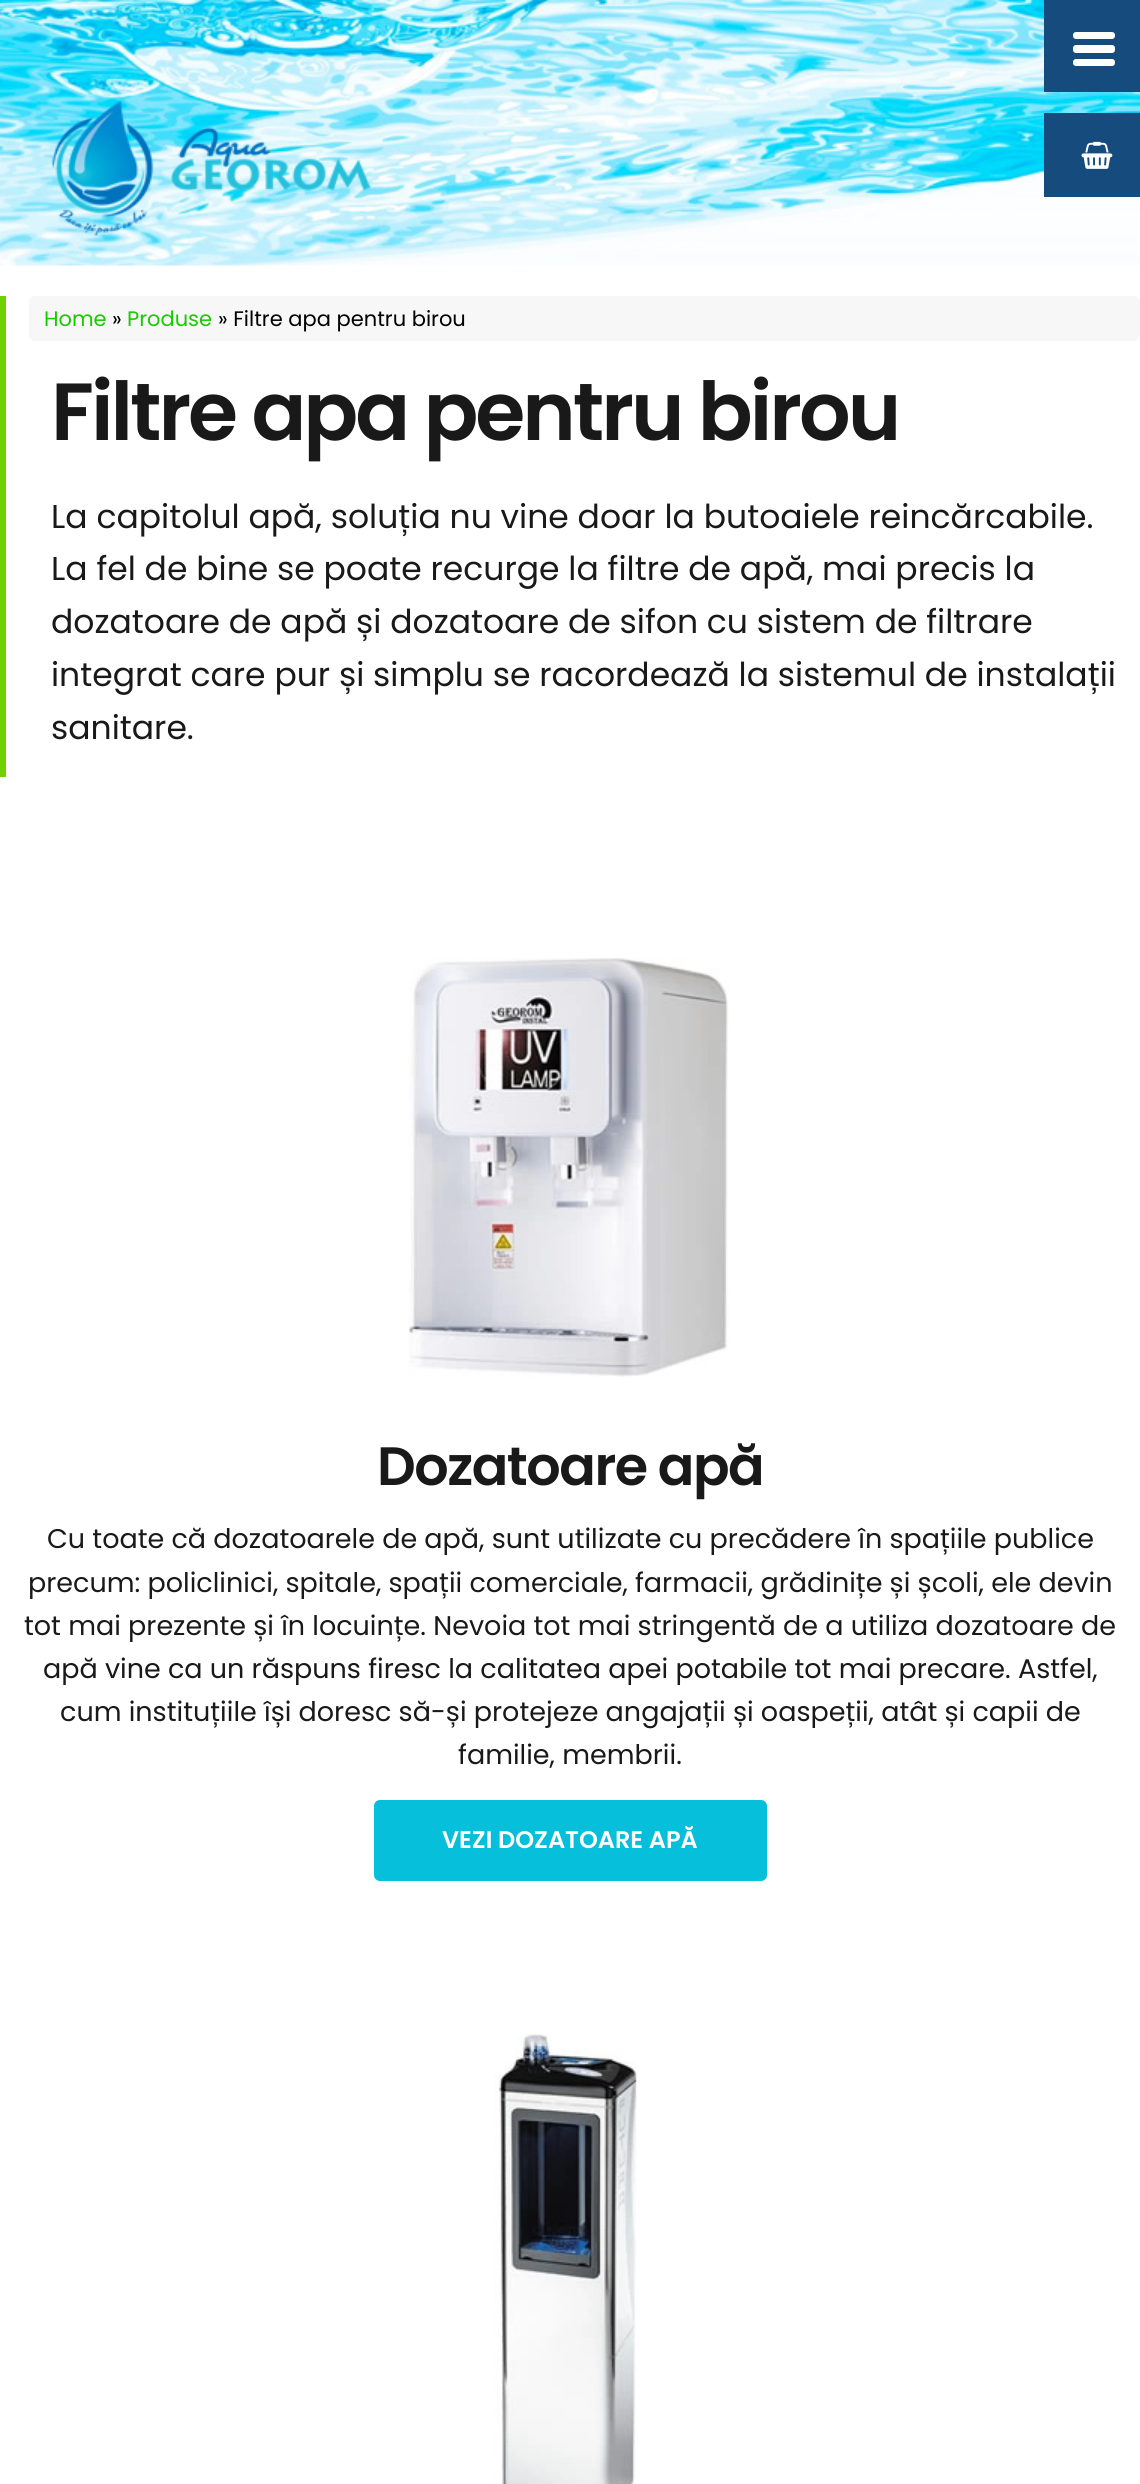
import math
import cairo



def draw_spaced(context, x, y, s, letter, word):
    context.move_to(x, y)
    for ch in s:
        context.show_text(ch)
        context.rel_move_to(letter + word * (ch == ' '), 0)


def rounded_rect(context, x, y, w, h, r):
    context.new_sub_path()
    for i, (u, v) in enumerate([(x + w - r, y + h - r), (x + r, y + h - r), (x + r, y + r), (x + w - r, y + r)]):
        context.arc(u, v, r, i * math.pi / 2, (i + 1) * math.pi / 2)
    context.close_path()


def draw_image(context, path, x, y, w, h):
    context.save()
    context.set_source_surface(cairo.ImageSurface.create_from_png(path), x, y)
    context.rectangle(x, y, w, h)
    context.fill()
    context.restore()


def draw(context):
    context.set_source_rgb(1, 1, 1)
    context.paint()
    draw_image(context, "images/1.png", 0, 0, 1140, 266)
    draw_image(context, "images/2.png", 52, 100, 319, 136)
    context.set_source_rgb(22 / 255, 75 / 255, 126 / 255)
    context.rectangle(1044, 0, 96, 92)
    context.fill()
    context.set_source_rgb(1, 1, 1)
    rounded_rect(context, 1073, 32, 42, 7, 3)
    context.fill()
    rounded_rect(context, 1073, 45, 42, 8, 3)
    context.fill()
    rounded_rect(context, 1073, 59, 42, 7, 3)
    context.fill()
    context.set_source_rgb(22 / 255, 75 / 255, 126 / 255)
    context.rectangle(1044, 113, 96, 84)
    context.fill()
    draw_image(context, "images/3.png", 1081, 141, 32, 28)
    context.set_source_rgb(113 / 255, 209 / 255, 0)
    context.rectangle(0, 296, 6, 481)
    context.fill()
    context.set_source_rgb(247 / 255, 247 / 255, 247 / 255)
    rounded_rect(context, 29, 296, 1111, 45, 6)
    context.fill()
    draw_image(context, "images/4.png", 408, 957, 321, 420)
    context.set_source_rgb(6 / 255, 191 / 255, 219 / 255)
    rounded_rect(context, 374, 1800, 393, 81, 6)
    context.fill()
    draw_image(context, "images/5.png", 494, 2034, 143, 450)
    context.select_font_face("Poppins")
    context.set_font_size(21)
    context.set_source_rgb(24 / 255, 203 / 255, 0)
    context.move_to(44, 326)
    context.show_text("Home")
    context.set_source_rgb(0, 0, 0)
    context.move_to(112, 326)
    context.show_text("»")
    context.set_source_rgb(24 / 255, 203 / 255, 0)
    context.move_to(127, 326)
    context.show_text("Produse")
    context.set_source_rgb(0, 0, 0)
    context.move_to(218, 326)
    context.show_text("» Filtre apa pentru birou")
    context.select_font_face("Poppins SemiBold")
    context.set_font_size(81)
    context.set_source_rgb(25 / 255, 25 / 255, 25 / 255)
    draw_spaced(context, 51, 440, "Filtre apa pentru birou", -3, 0)
    context.select_font_face("Poppins")
    context.set_font_size(33)
    context.move_to(51, 528)
    context.show_text("La capitolul apă, soluția nu vine doar la butoaiele reincărcabile.")
    context.move_to(51, 580)
    context.show_text("La fel de bine se poate recurge la filtre de apă, mai precis la")
    context.move_to(51, 633)
    context.show_text("dozatoare de apă și dozatoare de sifon cu sistem de filtrare")
    context.move_to(51, 686)
    context.show_text("integrat care pur și simplu se racordează la sistemul de instalații")
    context.move_to(51, 739)
    context.show_text("sanitare.")
    context.select_font_face("Poppins SemiBold")
    context.set_font_size(54)
    draw_spaced(context, 377, 1485, "Dozatoare apă", -1.5, 0)
    context.select_font_face("Poppins")
    context.set_font_size(27)
    context.move_to(47, 1548)
    context.show_text("Cu toate că dozatoarele de apă, sunt utilizate cu precădere în spațiile publice")
    context.move_to(28, 1592)
    context.show_text("precum: policlinici, spitale, spații comerciale, farmacii, grădinițe și școli, ele devin")
    context.move_to(24, 1635)
    context.show_text("tot mai prezente și în locuințe. Nevoia tot mai stringentă de a utiliza dozatoare de")
    context.move_to(43, 1678)
    context.show_text("apă vine ca un răspuns firesc la calitatea apei potabile tot mai precare. Astfel,")
    context.move_to(60, 1721)
    context.show_text("cum instituțiile își doresc să-și protejeze angajații și oaspeții, atât și capii de")
    context.move_to(458, 1764)
    context.show_text("familie, membrii.")
    context.select_font_face("Poppins SemiBold")
    context.set_font_size(24)
    context.set_source_rgb(1, 1, 1)
    context.move_to(442, 1848)
    context.show_text("VEZI DOZATOARE APĂ")


surface = cairo.ImageSurface(cairo.Format.RGB24, 1140, 2484)
context = cairo.Context(surface)
options = cairo.FontOptions()
options.set_hint_metrics(cairo.HintMetrics.OFF)
options.set_hint_style(cairo.HintStyle.NONE)
context.set_font_options(options)
context.set_miter_limit(4)
draw(context)
surface.write_to_png("out.png")
